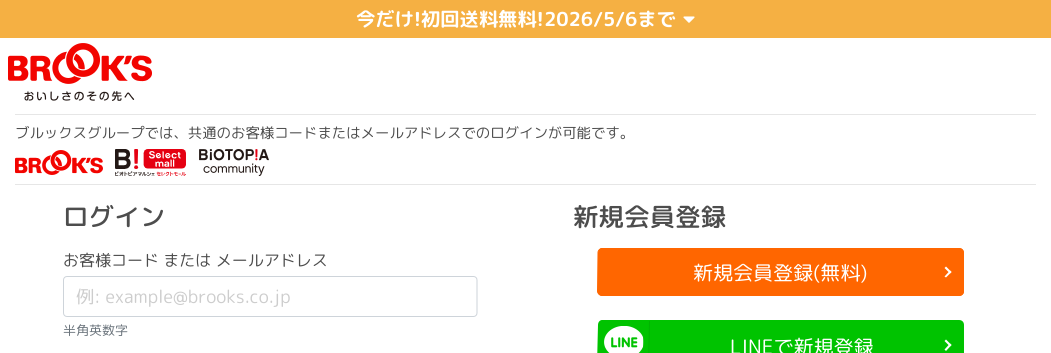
import math
import cairo



def draw_image(context, path, x, y, w, h):
    context.save()
    context.set_source_surface(cairo.ImageSurface.create_from_png(path), x, y)
    context.rectangle(x, y, w, h)
    context.fill()
    context.restore()


def draw(context):
    context.set_source_rgb(1, 1, 1)
    context.paint()
    context.set_source_rgb(245 / 255, 176 / 255, 67 / 255)
    context.rectangle(0, 0, 1051, 38)
    context.fill()
    draw_image(context, "images/1.png", 683, 16, 12, 7)
    draw_image(context, "images/2.png", 8, 43, 144, 58)
    context.set_source_rgb(230 / 255, 230 / 255, 230 / 255)
    context.rectangle(15, 114, 1021, 1)
    context.fill()
    draw_image(context, "images/3.png", 15, 150, 88, 25)
    draw_image(context, "images/4.png", 115, 149, 71, 27)
    draw_image(context, "images/5.png", 199, 149, 70, 27)
    context.rectangle(15, 184, 1021, 1)
    context.fill()
    context.new_path()
    context.move_to(67, 276.5)
    context.line_to(473.5, 276.5)
    context.curve_to(475.5, 276.5, 477, 278, 477, 280)
    context.line_to(477, 313)
    context.curve_to(477, 315, 475.5, 316.5, 473.5, 316.5)
    context.line_to(67, 316.5)
    context.curve_to(65, 316.5, 63.5, 315, 63.5, 313)
    context.line_to(63.5, 280)
    context.curve_to(63.5, 278, 65, 276.5, 67, 276.5)
    context.close_path()
    context.set_source_rgb(206 / 255, 212 / 255, 218 / 255)
    context.set_line_width(1)
    context.stroke()
    context.set_source_rgb(1, 102 / 255, 0)
    context.new_path()
    context.move_to(602, 248)
    context.line_to(959, 248)
    context.curve_to(962, 248, 964, 250, 964, 253)
    context.line_to(964, 291)
    context.curve_to(964, 294, 962, 296, 959, 296)
    context.line_to(602, 296)
    context.curve_to(600, 296, 597, 294, 597, 291)
    context.line_to(598, 253)
    context.curve_to(598, 250, 600, 248, 602, 248)
    context.close_path()
    context.fill()
    context.new_path()
    context.move_to(602.5, 248.5)
    context.line_to(959, 248.5)
    context.curve_to(961.5, 248.5, 963.5, 250.5, 963.5, 253)
    context.line_to(963.5, 291.5)
    context.curve_to(963.5, 293.5, 961.5, 295.5, 959, 295.5)
    context.line_to(602.5, 295.5)
    context.curve_to(600, 295.5, 598, 293.5, 598, 291)
    context.line_to(598, 252.5)
    context.curve_to(598, 250.5, 600, 248.5, 602.5, 248.5)
    context.close_path()
    context.stroke()
    context.set_source_rgb(1, 1, 1)
    context.new_path()
    context.move_to(946, 266.5)
    context.line_to(951.5, 272)
    context.line_to(950, 273.5)
    context.line_to(944.5, 268)
    context.close_path()
    context.fill()
    context.new_path()
    context.move_to(950, 270.5)
    context.line_to(951.5, 272)
    context.line_to(946, 277.5)
    context.line_to(944.5, 276.5)
    context.close_path()
    context.fill()
    context.set_source_rgb(0, 195 / 255, 0)
    context.new_path()
    context.move_to(602, 320)
    context.line_to(959, 320)
    context.curve_to(962, 320, 964, 322, 964, 325)
    context.line_to(964, 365)
    context.curve_to(964, 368, 962, 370, 959, 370)
    context.line_to(602, 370)
    context.curve_to(600, 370, 597, 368, 597, 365)
    context.line_to(598, 325)
    context.curve_to(598, 322, 600, 320, 602, 320)
    context.close_path()
    context.fill()
    context.set_source_rgb(0, 179 / 255, 0)
    context.new_path()
    context.move_to(649, 321)
    context.line_to(650, 321)
    context.line_to(649, 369)
    context.line_to(648, 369)
    context.close_path()
    context.fill()
    draw_image(context, "images/6.png", 604, 326, 40, 27)
    context.set_source_rgb(1, 1, 1)
    context.new_path()
    context.move_to(946, 339.5)
    context.line_to(951.5, 345)
    context.line_to(950, 346.5)
    context.line_to(944.5, 341)
    context.close_path()
    context.fill()
    context.new_path()
    context.move_to(950, 343.5)
    context.line_to(951.5, 345)
    context.line_to(946, 351)
    context.line_to(944.5, 349.5)
    context.close_path()
    context.fill()
    context.select_font_face("Rounded Mplus 1c Bold", cairo.FontSlant.NORMAL, cairo.FontWeight.BOLD)
    context.set_font_size(19.25)
    context.move_to(356, 26)
    context.show_text("今だけ!初回送料無料!2026/5/6まで")
    context.select_font_face("Rounded Mplus 1c")
    context.set_font_size(14.4)
    context.set_source_rgb(77 / 255, 77 / 255, 77 / 255)
    context.move_to(15, 138)
    context.show_text("ブルックスグループでは、共通のお客様コードまたはメールアドレスでのログインが可能です。")
    context.select_font_face("Rounded Mplus 1c Medium")
    context.set_font_size(25.5)
    context.move_to(63, 226)
    context.show_text("ログイン")
    context.select_font_face("Rounded Mplus 1c")
    context.set_font_size(16)
    context.move_to(63, 266)
    context.show_text("お客様コード または メールアドレス")
    context.set_font_size(18)
    context.set_source_rgb(205 / 255, 205 / 255, 205 / 255)
    context.move_to(76, 303)
    context.show_text("例: example@brooks.co.jp")
    context.set_font_size(13)
    context.set_source_rgb(108 / 255, 117 / 255, 125 / 255)
    context.move_to(63, 335)
    context.show_text("半角英数字")
    context.select_font_face("Rounded Mplus 1c Medium")
    context.set_font_size(25.5)
    context.set_source_rgb(77 / 255, 77 / 255, 77 / 255)
    context.move_to(573, 226)
    context.show_text("新規会員登録")
    context.select_font_face("Rounded Mplus 1c")
    context.set_font_size(20)
    context.set_source_rgb(1, 1, 1)
    context.move_to(693, 280)
    context.show_text("新規会員登録(無料)")
    context.save()
    context.translate(730, 354)
    context.rotate(0.1 * math.pi / 180)
    context.move_to(0, 0)
    context.show_text("LINEで新規登録")
    context.restore()


surface = cairo.ImageSurface(cairo.Format.RGB24, 1051, 353)
context = cairo.Context(surface)
options = cairo.FontOptions()
options.set_hint_metrics(cairo.HintMetrics.OFF)
options.set_hint_style(cairo.HintStyle.NONE)
context.set_font_options(options)
context.set_miter_limit(4)
draw(context)
surface.write_to_png("out.png")
